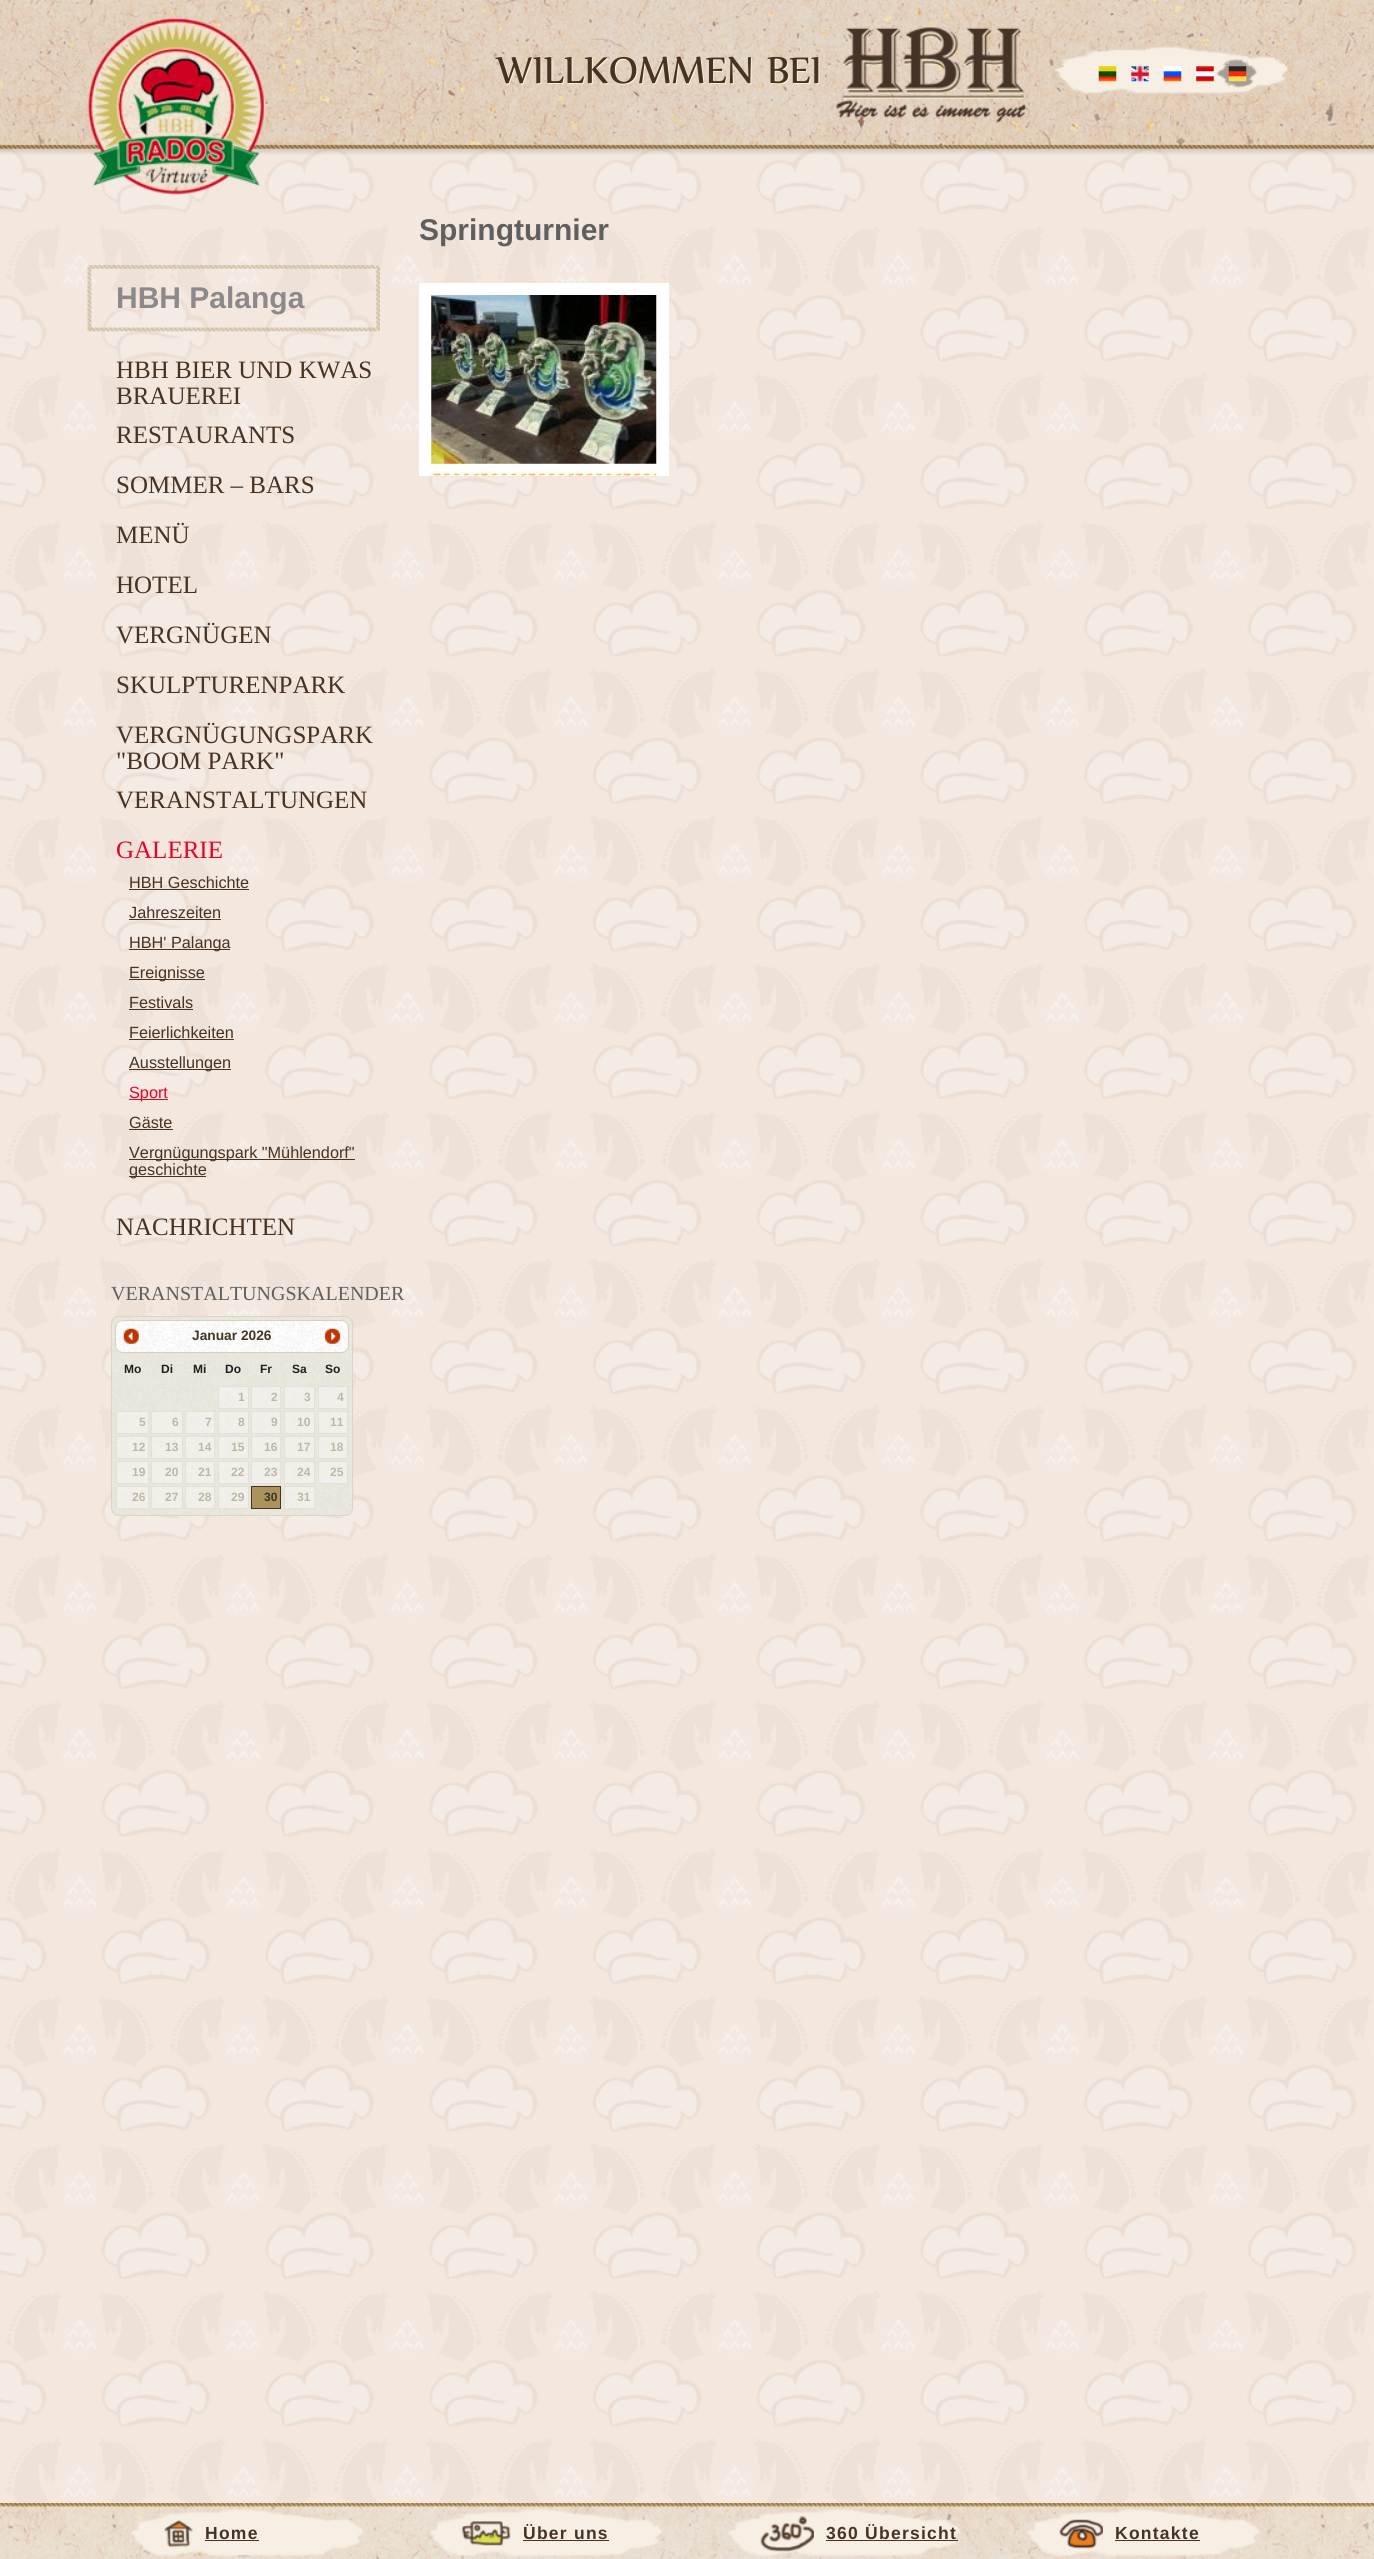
import math
import cairo



def draw_spaced(context, x, y, s, letter, word):
    context.move_to(x, y)
    for ch in s:
        context.show_text(ch)
        context.rel_move_to(letter + word * (ch == ' '), 0)


def rounded_rect(context, x, y, w, h, r):
    context.new_sub_path()
    for i, (u, v) in enumerate([(x + w - r, y + h - r), (x + r, y + h - r), (x + r, y + r), (x + w - r, y + r)]):
        context.arc(u, v, r, i * math.pi / 2, (i + 1) * math.pi / 2)
    context.close_path()


def draw_image(context, path, x, y, w, h):
    context.save()
    context.set_source_surface(cairo.ImageSurface.create_from_png(path), x, y)
    context.rectangle(x, y, w, h)
    context.fill()
    context.restore()


def draw(context):
    context.set_source_rgb(1, 1, 1)
    context.paint()
    draw_image(context, "images/1.png", 0, 0, 1374, 2503)
    draw_image(context, "images/2.png", 0, 0, 1374, 155)
    draw_image(context, "images/3.png", 87, 18, 177, 177)
    draw_image(context, "images/4.png", 836, 27, 191, 96)
    draw_image(context, "images/5.png", 1055, 46, 233, 48)
    draw_image(context, "images/6.png", 1098, 66, 19, 16)
    draw_image(context, "images/7.png", 1131, 66, 18, 16)
    draw_image(context, "images/8.png", 1163, 66, 19, 16)
    draw_image(context, "images/9.png", 1196, 66, 18, 16)
    draw_image(context, "images/10.png", 1216, 58, 42, 30)
    draw_image(context, "images/11.png", 1228, 66, 19, 16)
    context.set_source_rgb(1, 1, 1)
    context.rectangle(419, 283, 250, 193)
    context.fill()
    draw_image(context, "images/12.png", 431, 295, 226, 169)
    draw_image(context, "images/13.png", 431, 471, 226, 6)
    draw_image(context, "images/14.png", 87, 264, 293, 68)
    context.set_source_rgb(72 / 255, 50 / 255, 34 / 255)
    context.rectangle(129, 889, 120, 1)
    context.fill()
    context.rectangle(129, 919, 92, 1)
    context.fill()
    context.rectangle(129, 949, 101, 1)
    context.fill()
    context.rectangle(129, 979, 76, 1)
    context.fill()
    context.rectangle(129, 1009, 64, 1)
    context.fill()
    context.rectangle(129, 1039, 105, 1)
    context.fill()
    context.rectangle(129, 1069, 102, 1)
    context.fill()
    context.set_source_rgb(234 / 255, 2 / 255, 41 / 255)
    context.rectangle(129, 1099, 39, 1)
    context.fill()
    context.set_source_rgb(72 / 255, 50 / 255, 34 / 255)
    context.rectangle(129, 1129, 44, 1)
    context.fill()
    context.rectangle(129, 1159, 226, 1)
    context.fill()
    context.rectangle(129, 1176, 77, 1)
    context.fill()
    draw_image(context, "images/15.png", 111, 1317, 241, 199)
    rounded_rect(context, 111.5, 1316.5, 241, 199, 7.5)
    context.set_source_rgb(217 / 255, 214 / 255, 196 / 255)
    context.set_line_width(1)
    context.stroke()
    draw_image(context, "images/16.png", 115, 1320, 234, 32)
    rounded_rect(context, 115.5, 1320.5, 233, 32, 7.5)
    context.set_source_rgb(212 / 255, 209 / 255, 191 / 255)
    context.stroke()
    draw_image(context, "images/17.png", 123, 1328, 16, 16)
    draw_image(context, "images/18.png", 324, 1328, 17, 16)
    context.set_source_rgba(248 / 255, 247 / 255, 246 / 255, 0.35)
    context.rectangle(218, 1386, 31, 23)
    context.fill()
    draw_image(context, "images/19.png", 217, 1386, 32, 23)
    context.rectangle(218.5, 1386.5, 30, 22)
    context.set_source_rgba(203 / 255, 199 / 255, 189 / 255, 0.35)
    context.stroke()
    context.set_source_rgba(248 / 255, 247 / 255, 246 / 255, 0.35)
    context.rectangle(251, 1386, 30, 23)
    context.fill()
    draw_image(context, "images/20.png", 251, 1386, 30, 23)
    context.rectangle(251.5, 1386.5, 29, 22)
    context.set_source_rgba(203 / 255, 199 / 255, 189 / 255, 0.35)
    context.stroke()
    context.set_source_rgba(248 / 255, 247 / 255, 246 / 255, 0.35)
    context.rectangle(284, 1386, 31, 23)
    context.fill()
    draw_image(context, "images/21.png", 284, 1386, 31, 23)
    context.rectangle(284.5, 1386.5, 30, 22)
    context.set_source_rgba(203 / 255, 199 / 255, 189 / 255, 0.35)
    context.stroke()
    context.set_source_rgba(248 / 255, 247 / 255, 246 / 255, 0.35)
    context.rectangle(318, 1386, 30, 23)
    context.fill()
    draw_image(context, "images/22.png", 317, 1386, 30, 23)
    context.rectangle(318.5, 1386.5, 29, 22)
    context.set_source_rgba(203 / 255, 199 / 255, 189 / 255, 0.35)
    context.stroke()
    context.set_source_rgba(248 / 255, 247 / 255, 246 / 255, 0.35)
    context.rectangle(116, 1411, 33, 23)
    context.fill()
    draw_image(context, "images/23.png", 116, 1411, 33, 23)
    context.rectangle(116.5, 1411.5, 32, 22)
    context.set_source_rgba(203 / 255, 199 / 255, 189 / 255, 0.35)
    context.stroke()
    context.set_source_rgba(248 / 255, 247 / 255, 246 / 255, 0.35)
    context.rectangle(151, 1411, 32, 23)
    context.fill()
    draw_image(context, "images/24.png", 151, 1411, 31, 23)
    context.rectangle(151.5, 1411.5, 31, 22)
    context.set_source_rgba(203 / 255, 199 / 255, 189 / 255, 0.35)
    context.stroke()
    context.set_source_rgba(248 / 255, 247 / 255, 246 / 255, 0.35)
    context.rectangle(185, 1411, 30, 23)
    context.fill()
    draw_image(context, "images/25.png", 185, 1411, 30, 23)
    context.rectangle(185.5, 1411.5, 29, 22)
    context.set_source_rgba(203 / 255, 199 / 255, 189 / 255, 0.35)
    context.stroke()
    context.set_source_rgba(248 / 255, 247 / 255, 246 / 255, 0.35)
    context.rectangle(218, 1411, 31, 23)
    context.fill()
    draw_image(context, "images/26.png", 217, 1411, 32, 23)
    context.rectangle(218.5, 1411.5, 30, 22)
    context.set_source_rgba(203 / 255, 199 / 255, 189 / 255, 0.35)
    context.stroke()
    context.set_source_rgba(248 / 255, 247 / 255, 246 / 255, 0.35)
    context.rectangle(251, 1411, 30, 23)
    context.fill()
    draw_image(context, "images/27.png", 251, 1411, 30, 23)
    context.rectangle(251.5, 1411.5, 29, 22)
    context.set_source_rgba(203 / 255, 199 / 255, 189 / 255, 0.35)
    context.stroke()
    context.set_source_rgba(248 / 255, 247 / 255, 246 / 255, 0.35)
    context.rectangle(284, 1411, 31, 23)
    context.fill()
    draw_image(context, "images/28.png", 284, 1411, 31, 23)
    context.rectangle(284.5, 1411.5, 30, 22)
    context.set_source_rgba(203 / 255, 199 / 255, 189 / 255, 0.35)
    context.stroke()
    context.set_source_rgba(248 / 255, 247 / 255, 246 / 255, 0.35)
    context.rectangle(318, 1411, 30, 23)
    context.fill()
    draw_image(context, "images/29.png", 317, 1411, 30, 23)
    context.rectangle(318.5, 1411.5, 29, 22)
    context.set_source_rgba(203 / 255, 199 / 255, 189 / 255, 0.35)
    context.stroke()
    context.set_source_rgba(248 / 255, 247 / 255, 246 / 255, 0.35)
    context.rectangle(116, 1436, 33, 23)
    context.fill()
    draw_image(context, "images/30.png", 116, 1436, 33, 23)
    context.rectangle(116.5, 1436.5, 32, 22)
    context.set_source_rgba(203 / 255, 199 / 255, 189 / 255, 0.35)
    context.stroke()
    context.set_source_rgba(248 / 255, 247 / 255, 246 / 255, 0.35)
    context.rectangle(151, 1436, 32, 23)
    context.fill()
    draw_image(context, "images/31.png", 152, 1436, 30, 23)
    context.rectangle(151.5, 1436.5, 31, 22)
    context.set_source_rgba(203 / 255, 199 / 255, 189 / 255, 0.35)
    context.stroke()
    context.set_source_rgba(248 / 255, 247 / 255, 246 / 255, 0.35)
    context.rectangle(185, 1436, 30, 23)
    context.fill()
    draw_image(context, "images/32.png", 185, 1436, 30, 23)
    context.rectangle(185.5, 1436.5, 29, 22)
    context.set_source_rgba(203 / 255, 199 / 255, 189 / 255, 0.35)
    context.stroke()
    context.set_source_rgba(248 / 255, 247 / 255, 246 / 255, 0.35)
    context.rectangle(218, 1436, 31, 23)
    context.fill()
    draw_image(context, "images/33.png", 217, 1436, 32, 23)
    context.rectangle(218.5, 1436.5, 30, 22)
    context.set_source_rgba(203 / 255, 199 / 255, 189 / 255, 0.35)
    context.stroke()
    context.set_source_rgba(248 / 255, 247 / 255, 246 / 255, 0.35)
    context.rectangle(251, 1436, 30, 23)
    context.fill()
    draw_image(context, "images/34.png", 251, 1436, 30, 23)
    context.rectangle(251.5, 1436.5, 29, 22)
    context.set_source_rgba(203 / 255, 199 / 255, 189 / 255, 0.35)
    context.stroke()
    context.set_source_rgba(248 / 255, 247 / 255, 246 / 255, 0.35)
    context.rectangle(284, 1436, 31, 23)
    context.fill()
    draw_image(context, "images/35.png", 284, 1436, 31, 23)
    context.rectangle(284.5, 1436.5, 30, 22)
    context.set_source_rgba(203 / 255, 199 / 255, 189 / 255, 0.35)
    context.stroke()
    context.set_source_rgba(248 / 255, 247 / 255, 246 / 255, 0.35)
    context.rectangle(318, 1436, 30, 23)
    context.fill()
    draw_image(context, "images/36.png", 317, 1436, 30, 23)
    context.rectangle(318.5, 1436.5, 29, 22)
    context.set_source_rgba(203 / 255, 199 / 255, 189 / 255, 0.35)
    context.stroke()
    context.set_source_rgba(248 / 255, 247 / 255, 246 / 255, 0.35)
    context.rectangle(116, 1461, 33, 23)
    context.fill()
    draw_image(context, "images/37.png", 116, 1461, 33, 23)
    context.rectangle(116.5, 1461.5, 32, 22)
    context.set_source_rgba(203 / 255, 199 / 255, 189 / 255, 0.35)
    context.stroke()
    context.set_source_rgba(248 / 255, 247 / 255, 246 / 255, 0.35)
    context.rectangle(151, 1461, 32, 23)
    context.fill()
    draw_image(context, "images/38.png", 151, 1461, 31, 23)
    context.rectangle(151.5, 1461.5, 31, 22)
    context.set_source_rgba(203 / 255, 199 / 255, 189 / 255, 0.35)
    context.stroke()
    context.set_source_rgba(248 / 255, 247 / 255, 246 / 255, 0.35)
    context.rectangle(185, 1461, 30, 23)
    context.fill()
    draw_image(context, "images/39.png", 185, 1461, 30, 23)
    context.rectangle(185.5, 1461.5, 29, 22)
    context.set_source_rgba(203 / 255, 199 / 255, 189 / 255, 0.35)
    context.stroke()
    context.set_source_rgba(248 / 255, 247 / 255, 246 / 255, 0.35)
    context.rectangle(218, 1461, 31, 23)
    context.fill()
    draw_image(context, "images/19.png", 217, 1461, 32, 23)
    context.rectangle(218.5, 1461.5, 30, 22)
    context.set_source_rgba(203 / 255, 199 / 255, 189 / 255, 0.35)
    context.stroke()
    context.set_source_rgba(248 / 255, 247 / 255, 246 / 255, 0.35)
    context.rectangle(251, 1461, 30, 23)
    context.fill()
    draw_image(context, "images/20.png", 251, 1461, 30, 23)
    context.rectangle(251.5, 1461.5, 29, 22)
    context.set_source_rgba(203 / 255, 199 / 255, 189 / 255, 0.35)
    context.stroke()
    context.set_source_rgba(248 / 255, 247 / 255, 246 / 255, 0.35)
    context.rectangle(284, 1461, 31, 23)
    context.fill()
    draw_image(context, "images/21.png", 284, 1461, 31, 23)
    context.rectangle(284.5, 1461.5, 30, 22)
    context.set_source_rgba(203 / 255, 199 / 255, 189 / 255, 0.35)
    context.stroke()
    context.set_source_rgba(248 / 255, 247 / 255, 246 / 255, 0.35)
    context.rectangle(318, 1461, 30, 23)
    context.fill()
    draw_image(context, "images/22.png", 317, 1461, 30, 23)
    context.rectangle(318.5, 1461.5, 29, 22)
    context.set_source_rgba(203 / 255, 199 / 255, 189 / 255, 0.35)
    context.stroke()
    context.set_source_rgba(248 / 255, 247 / 255, 246 / 255, 0.35)
    context.rectangle(116, 1486, 33, 23)
    context.fill()
    draw_image(context, "images/23.png", 116, 1486, 33, 23)
    context.rectangle(116.5, 1486.5, 32, 22)
    context.set_source_rgba(203 / 255, 199 / 255, 189 / 255, 0.35)
    context.stroke()
    context.set_source_rgba(248 / 255, 247 / 255, 246 / 255, 0.35)
    context.rectangle(151, 1486, 32, 23)
    context.fill()
    draw_image(context, "images/24.png", 151, 1486, 31, 23)
    context.rectangle(151.5, 1486.5, 31, 22)
    context.set_source_rgba(203 / 255, 199 / 255, 189 / 255, 0.35)
    context.stroke()
    context.set_source_rgba(248 / 255, 247 / 255, 246 / 255, 0.35)
    context.rectangle(185, 1486, 30, 23)
    context.fill()
    draw_image(context, "images/25.png", 185, 1486, 30, 23)
    context.rectangle(185.5, 1486.5, 29, 22)
    context.set_source_rgba(203 / 255, 199 / 255, 189 / 255, 0.35)
    context.stroke()
    context.set_source_rgba(248 / 255, 247 / 255, 246 / 255, 0.35)
    context.rectangle(218, 1486, 31, 23)
    context.fill()
    draw_image(context, "images/26.png", 217, 1486, 32, 23)
    context.rectangle(218.5, 1486.5, 30, 22)
    context.set_source_rgba(203 / 255, 199 / 255, 189 / 255, 0.35)
    context.stroke()
    context.set_source_rgb(172 / 255, 146 / 255, 93 / 255)
    context.rectangle(251.5, 1486.5, 29, 22)
    context.fill_preserve()
    context.set_source_rgb(72 / 255, 50 / 255, 34 / 255)
    context.stroke()
    context.set_source_rgba(248 / 255, 247 / 255, 246 / 255, 0.35)
    context.rectangle(284, 1486, 31, 23)
    context.fill()
    draw_image(context, "images/28.png", 284, 1486, 31, 23)
    context.rectangle(284.5, 1486.5, 30, 22)
    context.set_source_rgba(203 / 255, 199 / 255, 189 / 255, 0.35)
    context.stroke()
    draw_image(context, "images/40.png", 0, 2503, 1374, 56)
    draw_image(context, "images/41.png", 131, 2509, 233, 48)
    draw_image(context, "images/42.png", 164, 2519, 29, 29)
    context.set_source_rgb(72 / 255, 50 / 255, 34 / 255)
    context.rectangle(205, 2540, 54, 1)
    context.fill()
    draw_image(context, "images/43.png", 429, 2509, 234, 48)
    draw_image(context, "images/44.png", 461, 2521, 50, 25)
    context.rectangle(523, 2540, 86, 1)
    context.fill()
    draw_image(context, "images/45.png", 728, 2509, 234, 48)
    draw_image(context, "images/46.png", 760, 2516, 54, 36)
    context.rectangle(826, 2540, 132, 1)
    context.fill()
    draw_image(context, "images/47.png", 1027, 2509, 233, 48)
    draw_image(context, "images/48.png", 1059, 2519, 44, 30)
    context.rectangle(1115, 2540, 85, 1)
    context.fill()
    context.select_font_face("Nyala")
    context.set_font_size(45)
    context.set_source_rgb(251 / 255, 246 / 255, 211 / 255)
    context.move_to(497, 84)
    context.show_text("WILLKOMMEN BEI")
    context.set_source_rgb(72 / 255, 50 / 255, 34 / 255)
    context.move_to(496, 83)
    context.show_text("WILLKOMMEN BEI")
    context.select_font_face("Liberation Sans", cairo.FontSlant.NORMAL, cairo.FontWeight.BOLD)
    context.set_font_size(30)
    context.set_source_rgb(95 / 255, 95 / 255, 95 / 255)
    context.move_to(419, 240)
    context.show_text("Springturnier")
    context.set_source_rgb(139 / 255, 137 / 255, 137 / 255)
    context.move_to(116, 308)
    context.show_text("HBH Palanga")
    context.select_font_face("Liberation Serif")
    context.set_font_size(25)
    context.set_source_rgb(72 / 255, 50 / 255, 34 / 255)
    context.move_to(116, 378)
    context.show_text("HBH BIER UND KWAS")
    context.move_to(116, 404)
    context.show_text("BRAUEREI")
    context.move_to(116, 443)
    context.show_text("RESTAURANTS")
    context.move_to(116, 493)
    context.show_text("SOMMER – BARS")
    context.move_to(116, 543)
    context.show_text("MENÜ")
    context.move_to(116, 593)
    context.show_text("HOTEL")
    context.move_to(116, 643)
    context.show_text("VERGNÜGEN")
    context.move_to(116, 693)
    context.show_text("SKULPTURENPARK")
    context.move_to(116, 743)
    context.show_text("VERGNÜGUNGSPARK")
    context.move_to(116, 769)
    context.show_text("\"BOOM PARK\"")
    context.move_to(116, 808)
    context.show_text("VERANSTALTUNGEN")
    context.set_source_rgb(234 / 255, 2 / 255, 41 / 255)
    context.move_to(116, 858)
    context.show_text("GALERIE")
    context.select_font_face("Liberation Sans")
    context.set_font_size(16.25)
    context.set_source_rgb(72 / 255, 50 / 255, 34 / 255)
    context.move_to(129, 888)
    context.show_text("HBH Geschichte")
    context.move_to(129, 918)
    context.show_text("Jahreszeiten")
    context.move_to(129, 948)
    context.show_text("HBH' Palanga")
    context.move_to(129, 978)
    context.show_text("Ereignisse")
    context.move_to(129, 1008)
    context.show_text("Festivals")
    context.move_to(129, 1038)
    context.show_text("Feierlichkeiten")
    context.move_to(129, 1068)
    context.show_text("Ausstellungen")
    context.set_source_rgb(234 / 255, 2 / 255, 41 / 255)
    context.move_to(129, 1098)
    context.show_text("Sport")
    context.set_source_rgb(72 / 255, 50 / 255, 34 / 255)
    context.move_to(129, 1128)
    context.show_text("Gäste")
    context.move_to(129, 1158)
    context.show_text("Vergnügungspark \"Mühlendorf\"")
    context.move_to(129, 1175)
    context.show_text("geschichte")
    context.select_font_face("Liberation Serif")
    context.set_font_size(25)
    context.move_to(116, 1235)
    context.show_text("NACHRICHTEN")
    context.set_font_size(20)
    context.set_source_rgb(95 / 255, 95 / 255, 95 / 255)
    context.move_to(111, 1300)
    context.show_text("VERANSTALTUNGSKALENDER")
    context.select_font_face("Liberation Sans", cairo.FontSlant.NORMAL, cairo.FontWeight.BOLD)
    context.set_font_size(13.75)
    context.set_source_rgb(69 / 255, 56 / 255, 33 / 255)
    context.move_to(192, 1340)
    context.show_text("Januar 2026")
    context.set_font_size(12)
    context.set_source_rgb(31 / 255, 31 / 255, 31 / 255)
    context.move_to(124, 1373)
    context.show_text("Mo")
    context.move_to(161, 1373)
    context.show_text("Di")
    context.move_to(193, 1373)
    context.show_text("Mi")
    context.move_to(225, 1373)
    context.show_text("Do")
    context.move_to(260, 1373)
    context.show_text("Fr")
    context.move_to(292, 1373)
    context.show_text("Sa")
    context.move_to(325, 1373)
    context.show_text("So")
    context.set_source_rgb(192 / 255, 182 / 255, 165 / 255)
    context.move_to(238, 1401)
    context.show_text("1")
    context.move_to(271, 1401)
    context.show_text("2")
    context.move_to(304, 1401)
    context.show_text("3")
    context.move_to(337, 1401)
    context.show_text("4")
    context.move_to(139, 1426)
    context.show_text("5")
    context.move_to(172, 1426)
    context.show_text("6")
    context.move_to(205, 1426)
    context.show_text("7")
    context.move_to(238, 1426)
    context.show_text("8")
    context.move_to(271, 1426)
    context.show_text("9")
    context.move_to(297, 1426)
    context.show_text("10")
    context.move_to(330, 1426)
    context.show_text("11")
    context.move_to(132, 1451)
    context.show_text("12")
    context.move_to(165, 1451)
    context.show_text("13")
    context.move_to(198, 1451)
    context.show_text("14")
    context.move_to(231, 1451)
    context.show_text("15")
    context.move_to(264, 1451)
    context.show_text("16")
    context.move_to(297, 1451)
    context.show_text("17")
    context.move_to(330, 1451)
    context.show_text("18")
    context.move_to(132, 1476)
    context.show_text("19")
    context.move_to(165, 1476)
    context.show_text("20")
    context.move_to(198, 1476)
    context.show_text("21")
    context.move_to(231, 1476)
    context.show_text("22")
    context.move_to(264, 1476)
    context.show_text("23")
    context.move_to(297, 1476)
    context.show_text("24")
    context.move_to(330, 1476)
    context.show_text("25")
    context.move_to(132, 1501)
    context.show_text("26")
    context.move_to(165, 1501)
    context.show_text("27")
    context.move_to(198, 1501)
    context.show_text("28")
    context.move_to(231, 1501)
    context.show_text("29")
    context.set_source_rgb(58 / 255, 52 / 255, 39 / 255)
    context.move_to(264, 1501)
    context.show_text("30")
    context.set_source_rgb(192 / 255, 182 / 255, 165 / 255)
    context.move_to(297, 1501)
    context.show_text("31")
    context.set_font_size(17.5)
    context.set_source_rgb(72 / 255, 50 / 255, 34 / 255)
    draw_spaced(context, 205, 2539, "Home", 1.25, 0)
    draw_spaced(context, 523, 2539, "Über uns", 1.25, 0)
    draw_spaced(context, 826, 2539, "360 Übersicht", 1.25, 0)
    draw_spaced(context, 1115, 2539, "Kontakte", 1.25, 0)


surface = cairo.ImageSurface(cairo.Format.RGB24, 1374, 2559)
context = cairo.Context(surface)
options = cairo.FontOptions()
options.set_hint_metrics(cairo.HintMetrics.OFF)
options.set_hint_style(cairo.HintStyle.NONE)
context.set_font_options(options)
context.set_miter_limit(4)
draw(context)
surface.write_to_png("out.png")
